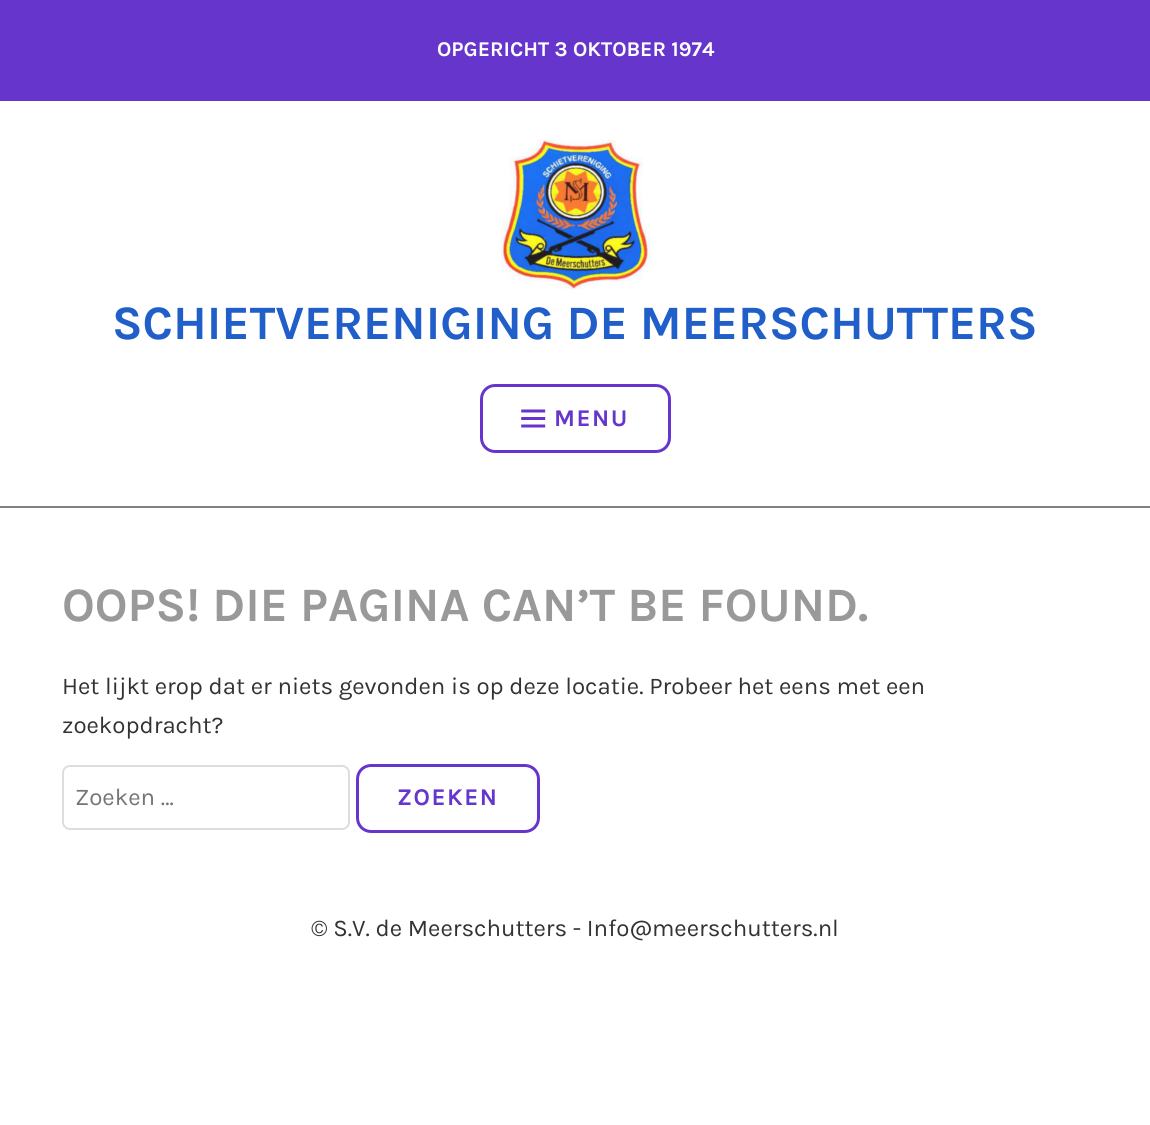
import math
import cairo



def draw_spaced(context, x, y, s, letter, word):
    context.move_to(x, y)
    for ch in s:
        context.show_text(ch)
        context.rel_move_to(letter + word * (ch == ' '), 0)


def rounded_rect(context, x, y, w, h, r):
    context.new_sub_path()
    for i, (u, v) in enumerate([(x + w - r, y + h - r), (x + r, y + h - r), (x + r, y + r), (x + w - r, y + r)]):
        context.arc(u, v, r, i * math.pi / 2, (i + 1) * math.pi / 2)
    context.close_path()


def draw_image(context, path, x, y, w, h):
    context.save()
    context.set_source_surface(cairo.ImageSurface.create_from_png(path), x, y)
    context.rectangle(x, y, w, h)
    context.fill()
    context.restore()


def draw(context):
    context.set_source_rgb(1, 1, 1)
    context.paint()
    context.set_source_rgb(102 / 255, 54 / 255, 204 / 255)
    context.rectangle(0, 0, 1150, 101)
    context.fill()
    context.set_source_rgb(128 / 255, 128 / 255, 128 / 255)
    context.rectangle(0, 506, 1150, 2)
    context.fill()
    draw_image(context, "images/1.png", 501, 139, 150, 151)
    rounded_rect(context, 481.5, 385.5, 188, 66, 13.5)
    context.set_source_rgb(102 / 255, 54 / 255, 204 / 255)
    context.set_line_width(3)
    context.stroke()
    draw_image(context, "images/2.png", 521, 409, 25, 19)
    rounded_rect(context, 63, 766, 286, 63, 7)
    context.set_source_rgb(221 / 255, 221 / 255, 221 / 255)
    context.set_line_width(2)
    context.stroke()
    rounded_rect(context, 357.5, 765.5, 181, 66, 13.5)
    context.set_source_rgb(102 / 255, 54 / 255, 204 / 255)
    context.set_line_width(3)
    context.stroke()
    context.select_font_face("Karla", cairo.FontSlant.NORMAL, cairo.FontWeight.BOLD)
    context.set_font_size(21)
    context.set_source_rgb(1, 1, 1)
    context.move_to(437, 56)
    context.show_text("OPGERICHT 3 OKTOBER 1974")
    context.set_font_size(48)
    context.set_source_rgb(32 / 255, 94 / 255, 201 / 255)
    context.move_to(112, 339)
    context.show_text("SCHIETVERENIGING DE MEERSCHUTTERS")
    context.set_font_size(24)
    context.set_source_rgb(102 / 255, 54 / 255, 204 / 255)
    draw_spaced(context, 554, 426, "MENU", 1.5, 0)
    context.set_font_size(48)
    context.set_source_rgb(153 / 255, 153 / 255, 153 / 255)
    context.move_to(62, 621)
    context.show_text("OOPS! DIE PAGINA CAN’T BE FOUND.")
    context.select_font_face("Karla")
    context.set_font_size(24)
    context.set_source_rgb(51 / 255, 51 / 255, 51 / 255)
    context.move_to(62, 694)
    context.show_text("Het lijkt erop dat er niets gevonden is op deze locatie. Probeer het eens met een")
    context.move_to(62, 733)
    context.show_text("zoekopdracht?")
    context.set_source_rgb(117 / 255, 117 / 255, 117 / 255)
    context.move_to(75, 805)
    context.show_text("Zoeken …")
    context.select_font_face("Karla", cairo.FontSlant.NORMAL, cairo.FontWeight.BOLD)
    context.set_source_rgb(102 / 255, 54 / 255, 204 / 255)
    draw_spaced(context, 397, 805, "ZOEKEN", 1.5, 0)
    context.select_font_face("Karla")
    context.set_source_rgb(51 / 255, 51 / 255, 51 / 255)
    context.move_to(311, 936)
    context.show_text("© S.V. de Meerschutters - Info@meerschutters.nl")


surface = cairo.ImageSurface(cairo.Format.RGB24, 1150, 1125)
context = cairo.Context(surface)
options = cairo.FontOptions()
options.set_hint_metrics(cairo.HintMetrics.OFF)
options.set_hint_style(cairo.HintStyle.NONE)
context.set_font_options(options)
context.set_miter_limit(4)
draw(context)
surface.write_to_png("out.png")
